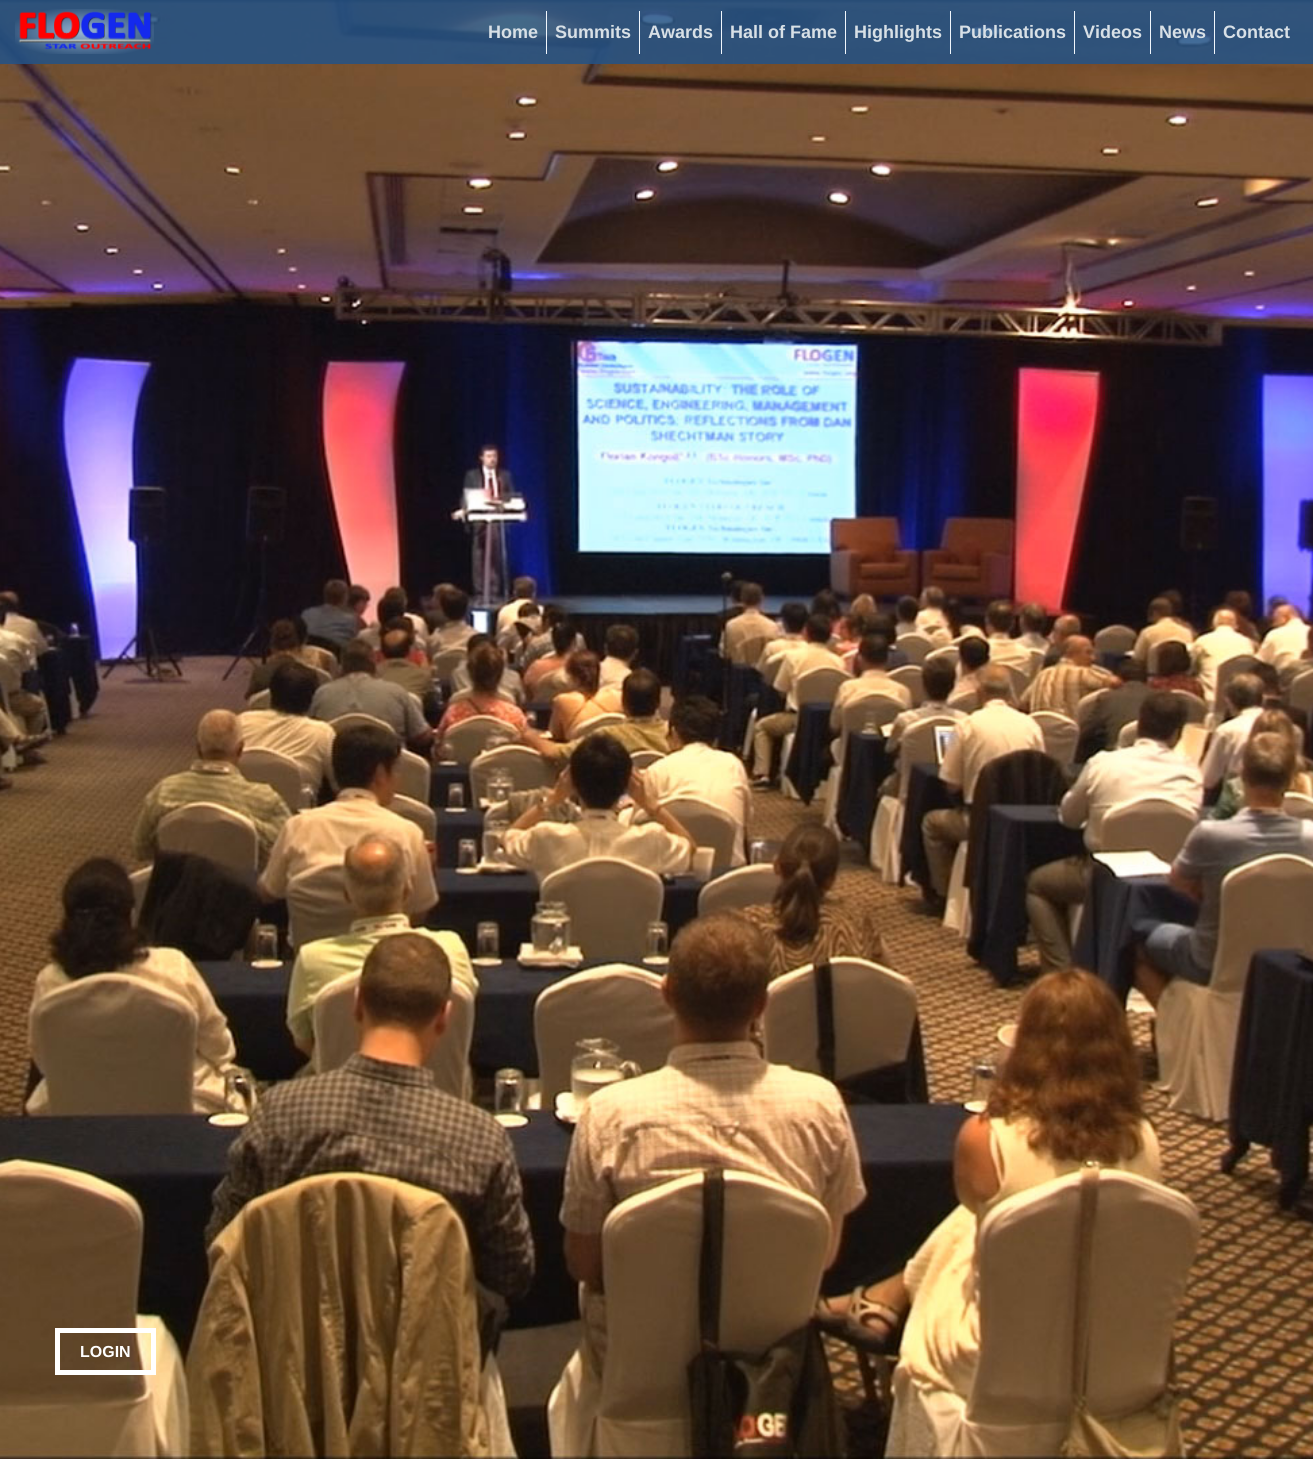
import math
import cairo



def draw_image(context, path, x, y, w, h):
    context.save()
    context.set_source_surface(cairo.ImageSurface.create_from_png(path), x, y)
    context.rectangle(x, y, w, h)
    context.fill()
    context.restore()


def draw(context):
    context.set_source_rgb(1, 1, 1)
    context.paint()
    draw_image(context, "images/2.png", 0, 0, 1313, 1459)
    context.set_source_rgba(34 / 255, 83 / 255, 135 / 255, 0.85)
    context.rectangle(0, 0, 1313, 64)
    context.fill()
    gradient = cairo.RadialGradient(0, 0, 0, 0, 0, 1)
    gradient.set_matrix(cairo.Matrix(1 / 98, 0, 0, 1 / 32, -1 * 85 / 98, -1 * 32 / 32))
    gradient.add_color_stop_rgba(0, 160 / 255, 187 / 255, 217 / 255, 0.95)
    gradient.add_color_stop_rgba(0.8, 160 / 255, 187 / 255, 217 / 255, 0)
    context.set_source(gradient)
    context.rectangle(15, 9, 139, 45)
    context.fill()
    draw_image(context, "images/1.png", 18, 11, 134, 39)
    context.set_source_rgb(240 / 255, 246 / 255, 252 / 255)
    context.rectangle(546, 11, 1, 43)
    context.fill()
    context.rectangle(639, 11, 1, 43)
    context.fill()
    context.rectangle(721, 11, 1, 43)
    context.fill()
    context.rectangle(845, 11, 1, 43)
    context.fill()
    context.rectangle(950, 11, 1, 43)
    context.fill()
    context.rectangle(1074, 11, 1, 43)
    context.fill()
    context.rectangle(1150, 11, 1, 43)
    context.fill()
    context.rectangle(1214, 11, 1, 43)
    context.fill()
    context.rectangle(57.5, 1330.5, 96, 42)
    context.set_source_rgb(1, 1, 1)
    context.set_line_width(5)
    context.stroke()
    context.select_font_face("Liberation Sans", cairo.FontSlant.NORMAL, cairo.FontWeight.BOLD)
    context.set_font_size(18)
    context.set_source_rgb(216 / 255, 224 / 255, 230 / 255)
    context.move_to(488, 38)
    context.show_text("Home")
    context.move_to(555, 38)
    context.show_text("Summits")
    context.move_to(648, 38)
    context.show_text("Awards")
    context.move_to(730, 38)
    context.show_text("Hall of Fame")
    context.move_to(854, 38)
    context.show_text("Highlights")
    context.move_to(959, 38)
    context.show_text("Publications")
    context.move_to(1083, 38)
    context.show_text("Videos")
    context.move_to(1159, 38)
    context.show_text("News")
    context.move_to(1223, 38)
    context.show_text("Contact")
    context.set_font_size(16)
    context.set_source_rgb(1, 1, 1)
    context.move_to(80, 1357)
    context.show_text("LOGIN")


surface = cairo.ImageSurface(cairo.Format.RGB24, 1313, 1459)
context = cairo.Context(surface)
options = cairo.FontOptions()
options.set_hint_metrics(cairo.HintMetrics.OFF)
options.set_hint_style(cairo.HintStyle.NONE)
context.set_font_options(options)
context.set_miter_limit(4)
draw(context)
surface.write_to_png("out.png")
